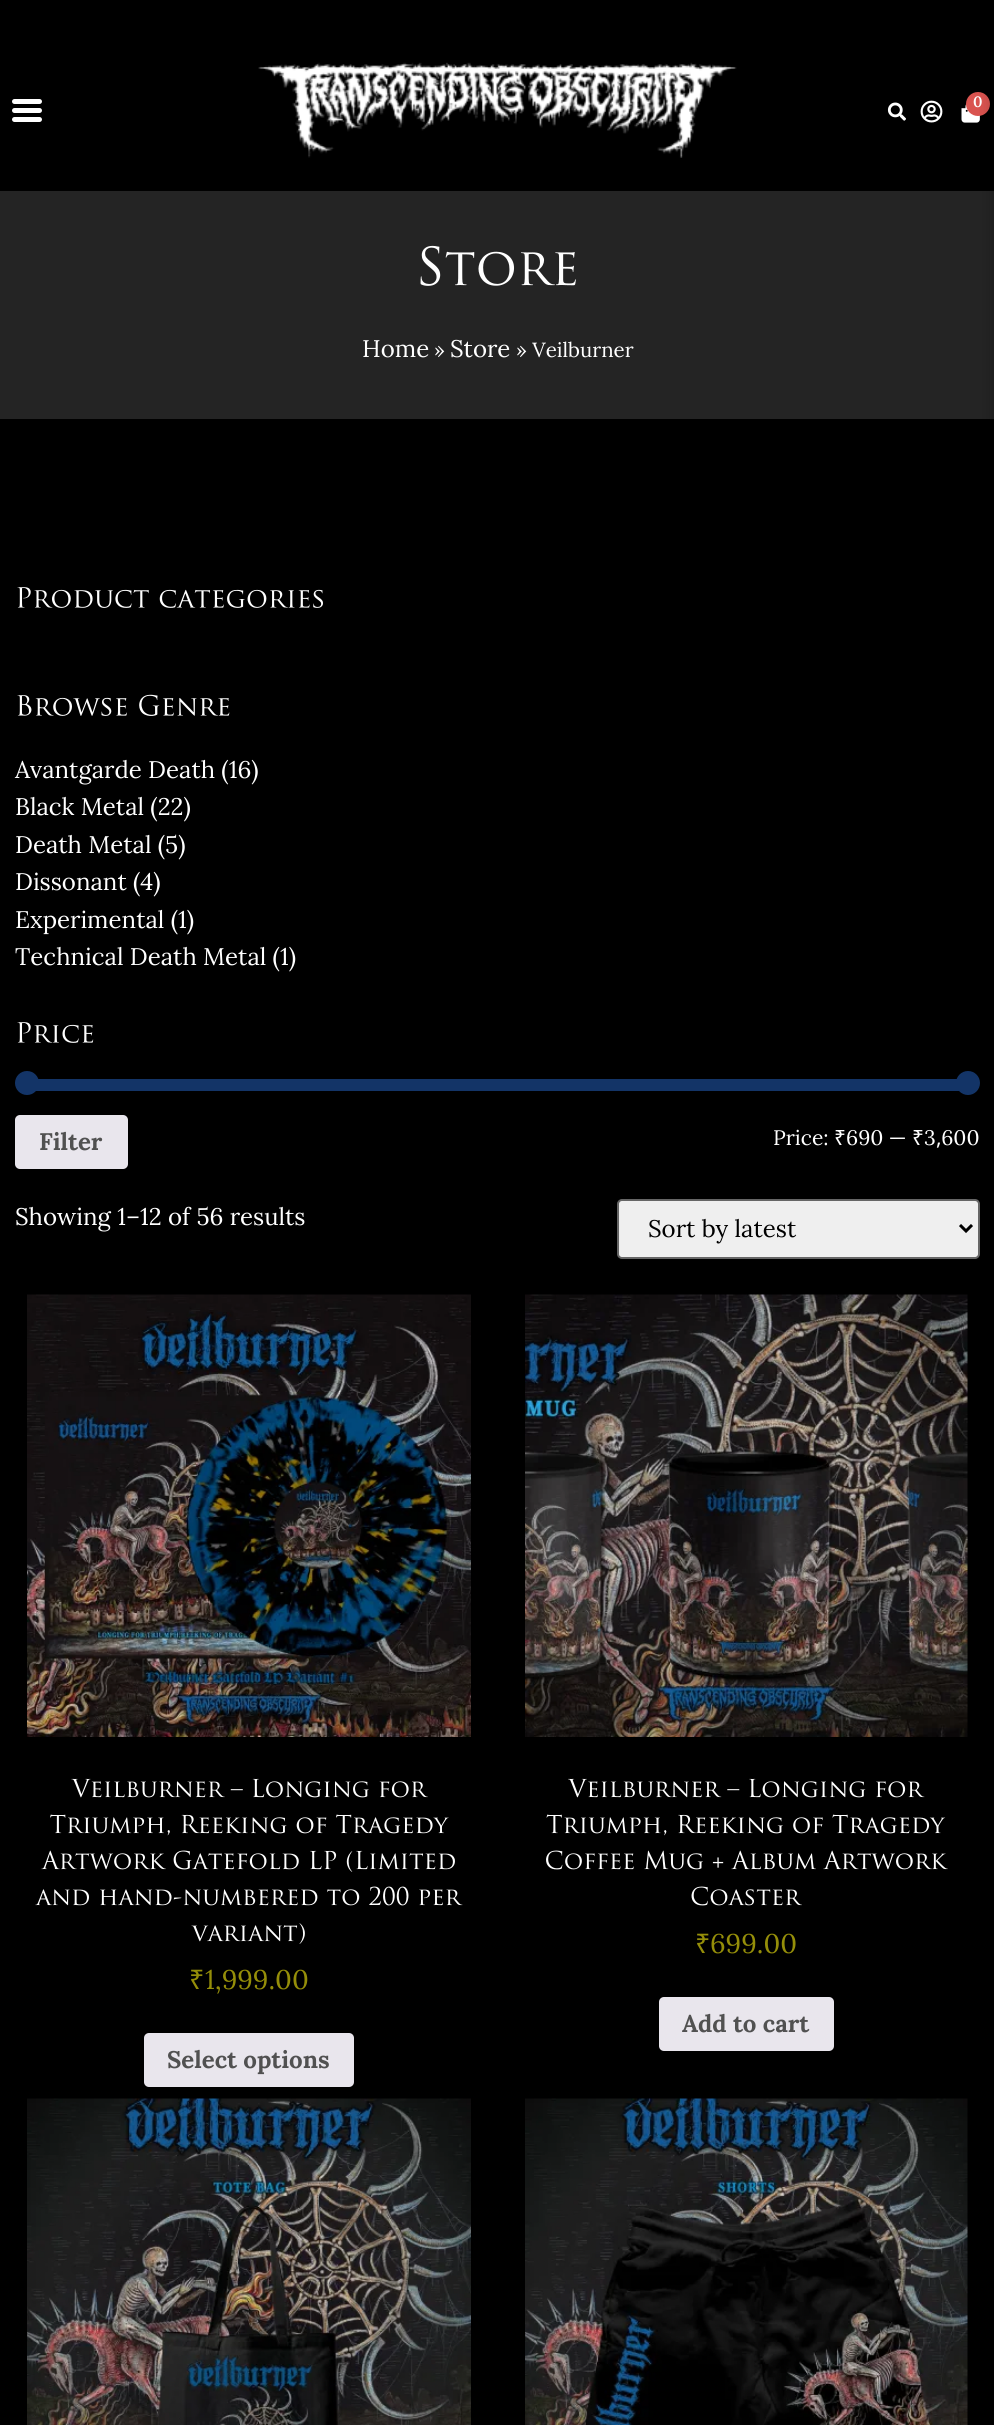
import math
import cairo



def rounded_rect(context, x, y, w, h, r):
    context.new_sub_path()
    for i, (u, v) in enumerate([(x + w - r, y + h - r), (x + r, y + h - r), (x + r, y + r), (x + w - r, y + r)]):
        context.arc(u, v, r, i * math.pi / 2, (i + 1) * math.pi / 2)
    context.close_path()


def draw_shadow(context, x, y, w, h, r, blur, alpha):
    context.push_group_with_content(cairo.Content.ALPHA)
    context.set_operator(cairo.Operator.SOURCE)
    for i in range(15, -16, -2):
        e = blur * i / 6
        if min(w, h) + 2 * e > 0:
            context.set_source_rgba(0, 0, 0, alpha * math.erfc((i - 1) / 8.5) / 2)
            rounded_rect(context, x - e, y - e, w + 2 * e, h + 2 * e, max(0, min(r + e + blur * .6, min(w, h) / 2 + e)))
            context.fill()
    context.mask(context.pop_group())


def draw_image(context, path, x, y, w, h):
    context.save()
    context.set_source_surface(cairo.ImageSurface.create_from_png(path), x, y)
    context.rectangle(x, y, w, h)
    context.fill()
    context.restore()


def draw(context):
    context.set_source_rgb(0, 0, 0)
    context.paint()
    draw_image(context, "images/4.png", 961, 103, 19, 20)
    context.set_source_rgb(217 / 255, 83 / 255, 79 / 255)
    context.arc(978, 104, 12, 0, 2 * math.pi)
    context.fill()
    context.set_source_rgb(36 / 255, 36 / 255, 36 / 255)
    context.rectangle(0, 191, 994, 228)
    context.fill()
    context.set_source_rgb(19 / 255, 52 / 255, 103 / 255)
    context.rectangle(35, 1079, 925, 12)
    context.fill()
    context.arc(968, 1083, 12, 0, 2 * math.pi)
    context.fill()
    context.set_source_rgb(239 / 255, 239 / 255, 239 / 255)
    rounded_rect(context, 618, 1200, 361, 58, 4)
    context.fill_preserve()
    context.set_source_rgb(102 / 255, 102 / 255, 102 / 255)
    context.stroke()
    context.new_path()
    context.move_to(960, 1225)
    context.line_to(966, 1231)
    context.line_to(972, 1225)
    context.set_source_rgb(0, 0, 0)
    context.set_line_width(3)
    context.stroke()
    context.set_source_rgb(0, 0, 0)
    draw_shadow(context, 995, 0, 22, 1842, 0, 7.5, 0.35)
    context.set_source_rgb(1, 1, 1)
    rounded_rect(context, 12, 108, 30, 5, 2.5)
    context.fill()
    rounded_rect(context, 12, 99, 30, 5, 2.5)
    context.fill()
    rounded_rect(context, 12, 117, 30, 5, 2.5)
    context.fill()
    draw_image(context, "images/1.png", 258, 62, 479, 96)
    draw_image(context, "images/2.png", 887, 102, 19, 19)
    draw_image(context, "images/3.png", 920, 100, 23, 23)
    draw_image(context, "images/5.png", 420, 245, 156, 41)
    draw_image(context, "images/6.png", 17, 587, 306, 21)
    draw_image(context, "images/7.png", 17, 694, 213, 22)
    draw_image(context, "images/8.png", 17, 1022, 77, 21)
    context.set_source_rgb(19 / 255, 52 / 255, 103 / 255)
    context.arc(27, 1083, 12, 0, 2 * math.pi)
    context.fill()
    context.set_source_rgb(233 / 255, 230 / 255, 237 / 255)
    rounded_rect(context, 15, 1115, 113, 54, 5)
    context.fill()
    draw_image(context, "images/9.png", 27, 1294, 444, 443)
    draw_image(context, "images/10.png", 71, 1778, 357, 20)
    draw_image(context, "images/11.png", 50, 1814, 399, 22)
    draw_image(context, "images/12.png", 41, 1850, 414, 22)
    draw_image(context, "images/13.png", 35, 1886, 428, 20)
    draw_image(context, "images/14.png", 191, 1923, 114, 21)
    rounded_rect(context, 144, 2033, 210, 54, 5)
    context.fill()
    draw_image(context, "images/15.png", 525, 1294, 443, 443)
    draw_image(context, "images/16.png", 568, 1778, 357, 20)
    draw_image(context, "images/17.png", 546, 1814, 400, 22)
    draw_image(context, "images/18.png", 546, 1850, 402, 20)
    draw_image(context, "images/19.png", 691, 1886, 111, 20)
    rounded_rect(context, 659, 1997, 175, 54, 5)
    context.fill()
    draw_image(context, "images/20.png", 27, 2098, 444, 327)
    draw_image(context, "images/21.png", 525, 2098, 443, 327)
    context.select_font_face("Lora SemiBold")
    context.set_font_size(15)
    context.set_source_rgb(1, 1, 1)
    context.move_to(973, 107)
    context.show_text("0")
    context.select_font_face("Lora")
    context.set_font_size(24)
    context.move_to(362, 357)
    context.show_text("Home")
    context.set_font_size(20.5)
    context.move_to(434, 357)
    context.show_text("»")
    context.set_font_size(24)
    context.move_to(450, 357)
    context.show_text("Store")
    context.set_font_size(20.5)
    context.move_to(516, 357)
    context.show_text("» Veilburner")
    context.set_font_size(24)
    context.move_to(15, 778)
    context.show_text("Avantgarde Death (16)")
    context.move_to(15, 815)
    context.show_text("Black Metal (22)")
    context.move_to(15, 853)
    context.show_text("Death Metal (5)")
    context.move_to(15, 890)
    context.show_text("Dissonant (4)")
    context.move_to(15, 928)
    context.show_text("Experimental (1)")
    context.move_to(15, 965)
    context.show_text("Technical Death Metal (1)")
    context.select_font_face("Lora", cairo.FontSlant.NORMAL, cairo.FontWeight.BOLD)
    context.set_source_rgb(81 / 255, 81 / 255, 81 / 255)
    context.move_to(39, 1150)
    context.show_text("Filter")
    context.select_font_face("Lora")
    context.set_font_size(21)
    context.set_source_rgb(1, 1, 1)
    context.move_to(773, 1145)
    context.show_text("Price:")
    context.select_font_face("Noto Sans")
    context.move_to(834, 1145)
    context.show_text("₹")
    context.select_font_face("Lora")
    context.move_to(846, 1145)
    context.show_text("690 —")
    context.select_font_face("Noto Sans")
    context.move_to(912, 1145)
    context.show_text("₹")
    context.select_font_face("Lora")
    context.move_to(924, 1145)
    context.show_text("3 600")
    context.select_font_face("Noto Sans")
    context.move_to(936, 1145)
    context.show_text(",")
    context.select_font_face("Lora")
    context.set_font_size(24)
    context.move_to(15, 1225)
    context.show_text("Showing 1–12 of 56 results")
    context.set_source_rgb(0, 0, 0)
    context.move_to(648, 1237)
    context.show_text("Sort by latest")
    context.select_font_face("Noto Sans")
    context.set_font_size(27)
    context.set_source_rgb(149 / 255, 142 / 255, 9 / 255)
    context.move_to(189, 1989)
    context.show_text("₹")
    context.select_font_face("Lora")
    context.move_to(205, 1989)
    context.show_text("1,999.00")
    context.select_font_face("Lora", cairo.FontSlant.NORMAL, cairo.FontWeight.BOLD)
    context.set_font_size(24)
    context.set_source_rgb(81 / 255, 81 / 255, 81 / 255)
    context.move_to(167, 2068)
    context.show_text("Select options")
    context.select_font_face("Noto Sans")
    context.set_font_size(27)
    context.set_source_rgb(149 / 255, 142 / 255, 9 / 255)
    context.move_to(695, 1953)
    context.show_text("₹")
    context.select_font_face("Lora")
    context.move_to(710, 1953)
    context.show_text("699.00")
    context.select_font_face("Lora", cairo.FontSlant.NORMAL, cairo.FontWeight.BOLD)
    context.set_font_size(24)
    context.set_source_rgb(81 / 255, 81 / 255, 81 / 255)
    context.move_to(682, 2032)
    context.show_text("Add to cart")


surface = cairo.ImageSurface(cairo.Format.RGB24, 994, 2425)
context = cairo.Context(surface)
options = cairo.FontOptions()
options.set_hint_metrics(cairo.HintMetrics.OFF)
options.set_hint_style(cairo.HintStyle.NONE)
context.set_font_options(options)
context.set_miter_limit(4)
draw(context)
surface.write_to_png("out.png")
